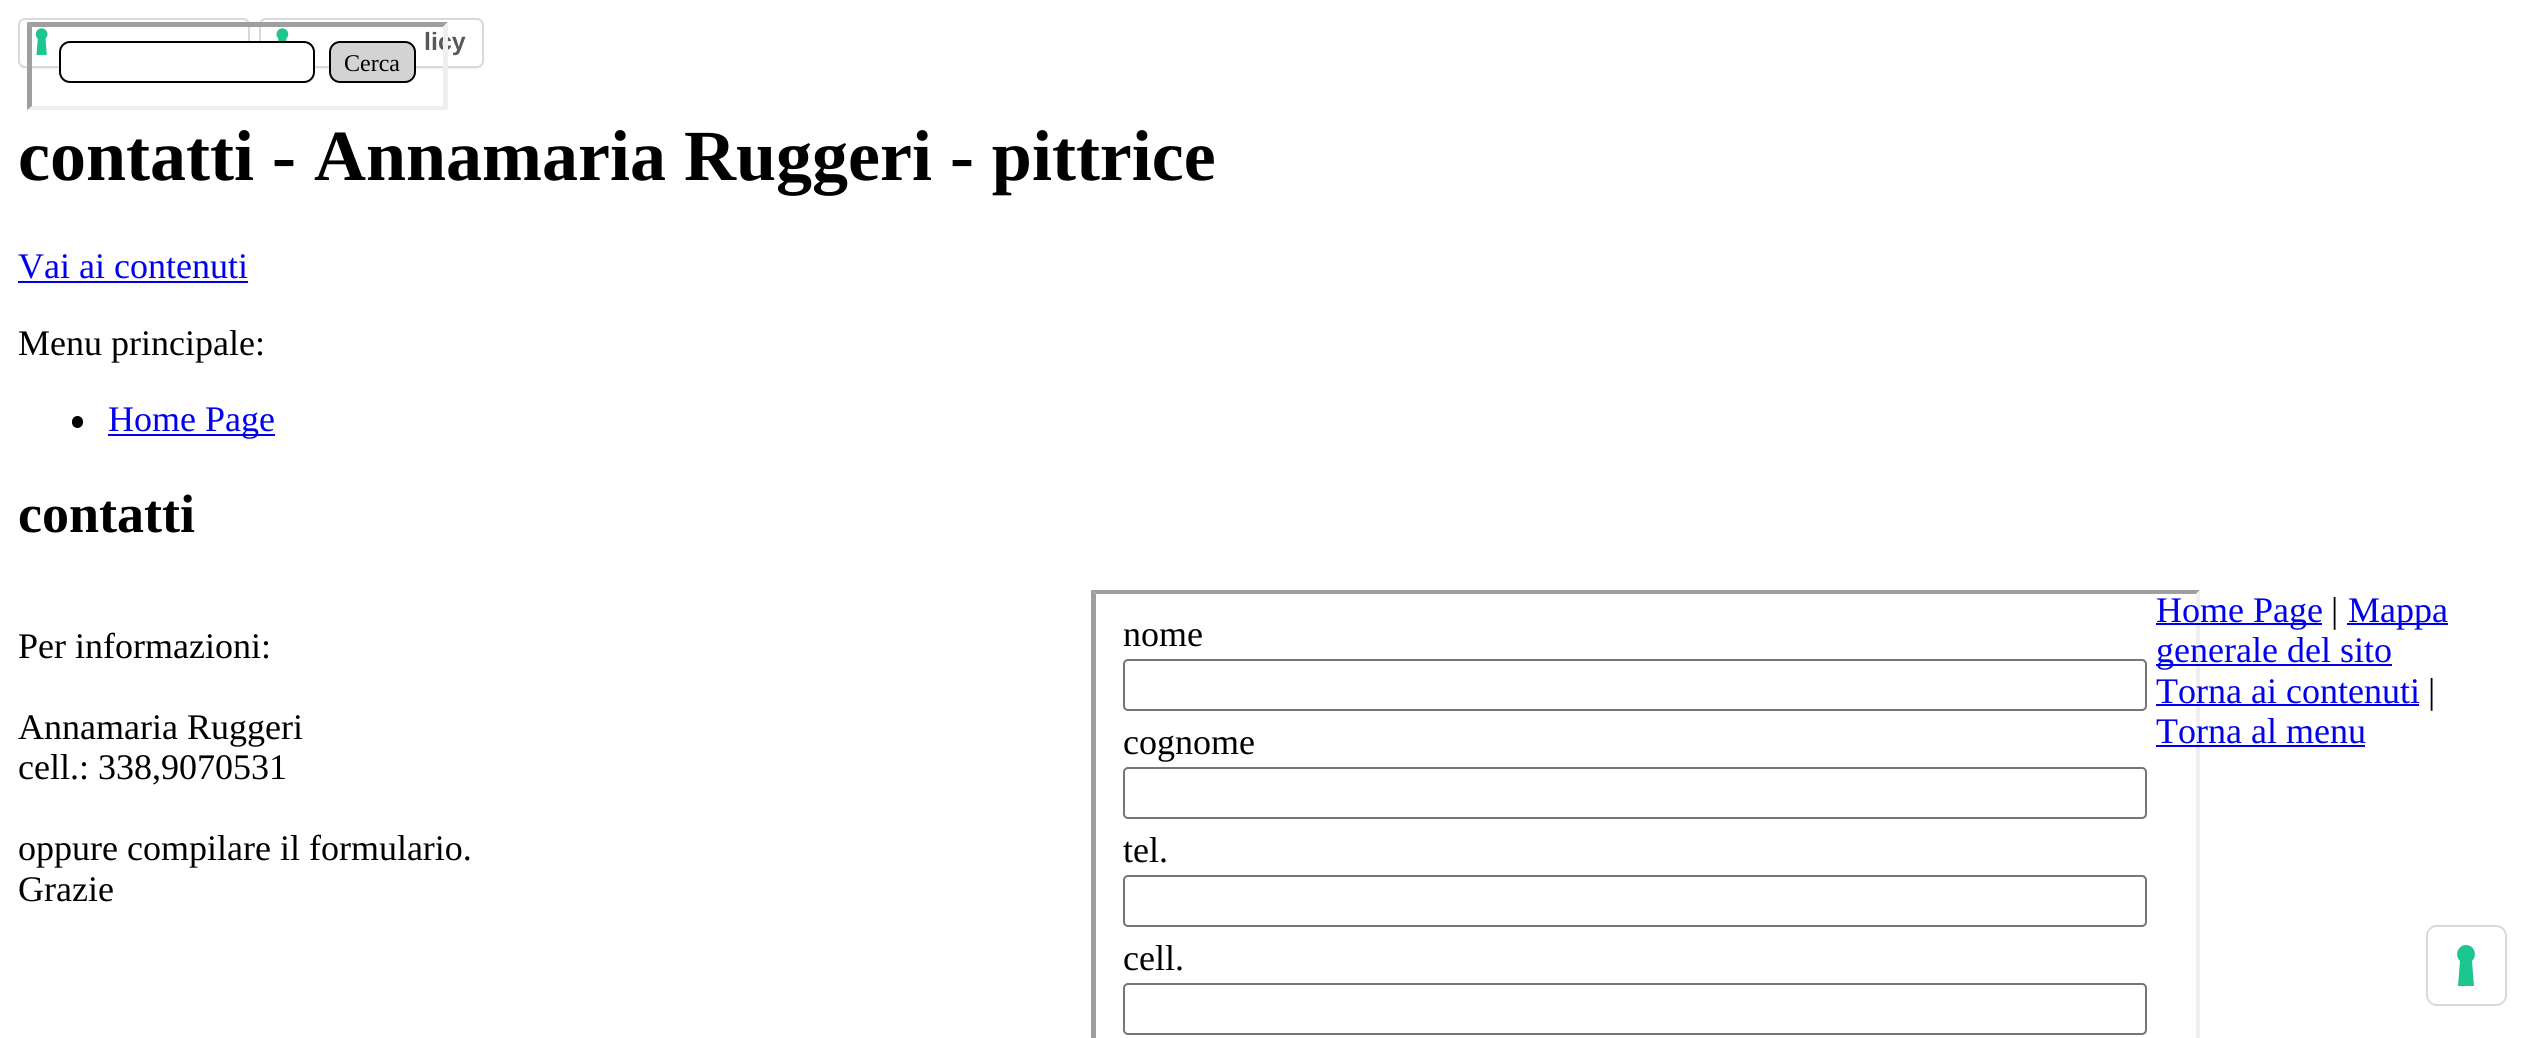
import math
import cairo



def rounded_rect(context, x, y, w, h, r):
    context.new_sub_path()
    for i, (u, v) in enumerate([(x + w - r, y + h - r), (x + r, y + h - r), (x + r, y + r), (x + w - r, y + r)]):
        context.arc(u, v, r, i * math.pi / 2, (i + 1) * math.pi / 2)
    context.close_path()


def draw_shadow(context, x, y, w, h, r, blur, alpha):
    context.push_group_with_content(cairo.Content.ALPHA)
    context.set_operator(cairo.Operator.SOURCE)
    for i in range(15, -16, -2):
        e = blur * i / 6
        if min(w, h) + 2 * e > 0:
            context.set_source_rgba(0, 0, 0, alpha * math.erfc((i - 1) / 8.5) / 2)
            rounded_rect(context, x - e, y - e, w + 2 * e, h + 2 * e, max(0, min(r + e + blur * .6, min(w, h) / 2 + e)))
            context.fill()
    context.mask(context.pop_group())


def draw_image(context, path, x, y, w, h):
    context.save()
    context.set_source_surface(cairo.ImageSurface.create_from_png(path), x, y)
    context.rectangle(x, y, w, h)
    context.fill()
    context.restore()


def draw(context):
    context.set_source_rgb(1, 1, 1)
    context.paint()
    context.set_source_rgb(0, 0, 0)
    draw_shadow(context, 20, 23, 228, 45, 5, 1, 0.15)
    context.set_source_rgb(1, 1, 1)
    rounded_rect(context, 18, 18, 232, 50, 7)
    context.fill()
    draw_image(context, "images/1.png", 35, 28, 13, 27)
    rounded_rect(context, 19, 19, 230, 48, 6)
    context.set_source_rgba(0, 0, 0, 0.15)
    context.stroke()
    context.set_source_rgb(0, 0, 0)
    draw_shadow(context, 261, 23, 221, 45, 5, 1, 0.15)
    context.set_source_rgb(1, 1, 1)
    rounded_rect(context, 259, 18, 225, 50, 7)
    context.fill()
    draw_image(context, "images/2.png", 276, 28, 13, 13)
    rounded_rect(context, 260, 19, 223, 48, 6)
    context.set_source_rgba(0, 0, 0, 0.15)
    context.stroke()
    context.set_source_rgb(159 / 255, 159 / 255, 159 / 255)
    context.new_path()
    context.move_to(27, 22)
    context.line_to(448, 22)
    context.line_to(443, 27)
    context.line_to(32, 27)
    context.close_path()
    context.fill()
    context.set_source_rgb(1, 1, 1)
    rounded_rect(context, 60, 42, 254, 40, 10)
    context.fill_preserve()
    context.set_source_rgb(0, 0, 0)
    context.stroke()
    context.set_source_rgb(211 / 255, 211 / 255, 211 / 255)
    rounded_rect(context, 330, 42, 85, 40, 10)
    context.fill_preserve()
    context.set_source_rgb(0, 0, 0)
    context.stroke()
    context.set_source_rgb(0, 0, 238 / 255)
    context.rectangle(18, 281, 230, 2)
    context.fill()
    context.set_source_rgb(0, 0, 0)
    rounded_rect(context, 72, 416, 11, 12, 5.5)
    context.fill()
    context.set_source_rgb(0, 0, 238 / 255)
    context.rectangle(108, 434, 167, 2)
    context.fill()
    context.set_source_rgb(159 / 255, 159 / 255, 159 / 255)
    context.new_path()
    context.move_to(1091, 590)
    context.line_to(2200, 590)
    context.line_to(2196, 594)
    context.line_to(1096, 594)
    context.close_path()
    context.fill()
    context.set_source_rgb(239 / 255, 239 / 255, 239 / 255)
    context.new_path()
    context.move_to(2200, 590)
    context.line_to(2200, 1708)
    context.line_to(2196, 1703)
    context.line_to(2196, 594)
    context.close_path()
    context.fill()
    context.set_source_rgb(159 / 255, 159 / 255, 159 / 255)
    context.new_path()
    context.move_to(1091, 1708)
    context.line_to(1091, 590)
    context.line_to(1096, 594)
    context.line_to(1096, 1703)
    context.close_path()
    context.fill()
    rounded_rect(context, 1124, 660, 1022, 50, 4)
    context.set_source_rgb(118 / 255, 118 / 255, 118 / 255)
    context.stroke()
    rounded_rect(context, 1124, 768, 1022, 50, 4)
    context.stroke()
    rounded_rect(context, 1124, 876, 1022, 50, 4)
    context.stroke()
    rounded_rect(context, 1124, 984, 1022, 50, 4)
    context.stroke()
    context.set_source_rgb(0, 0, 238 / 255)
    context.rectangle(2156, 623, 166, 2)
    context.fill()
    context.rectangle(2347, 623, 101, 2)
    context.fill()
    context.rectangle(2156, 664, 236, 2)
    context.fill()
    context.rectangle(2156, 704, 263, 2)
    context.fill()
    context.rectangle(2156, 745, 209, 2)
    context.fill()
    rounded_rect(context, 2427, 926, 79, 79, 10)
    context.set_source_rgb(217 / 255, 217 / 255, 217 / 255)
    context.stroke()
    context.set_source_rgb(1, 1, 1)
    rounded_rect(context, 2428, 927, 76, 77, 9)
    context.fill()
    context.set_source_rgb(28 / 255, 198 / 255, 145 / 255)
    context.set_fill_rule(cairo.FillRule.EVEN_ODD)
    context.new_path()
    context.move_to(2466, 945)
    context.curve_to(2474, 945, 2478, 955, 2472, 961)
    context.line_to(2474, 986)
    context.line_to(2458, 986)
    context.line_to(2460, 961)
    context.curve_to(2454, 955, 2458, 945, 2466, 945)
    context.close_path()
    context.fill()
    context.select_font_face("Liberation Sans", cairo.FontSlant.NORMAL, cairo.FontWeight.BOLD)
    context.set_font_size(25)
    context.set_source_rgb(89 / 255, 89 / 255, 89 / 255)
    context.move_to(424, 50)
    context.show_text("licy")
    context.set_source_rgb(239 / 255, 239 / 255, 239 / 255)
    context.set_fill_rule(cairo.FillRule.WINDING)
    context.new_path()
    context.move_to(448, 22)
    context.line_to(448, 110)
    context.line_to(443, 106)
    context.line_to(443, 27)
    context.close_path()
    context.fill()
    context.new_path()
    context.move_to(448, 110)
    context.line_to(27, 110)
    context.line_to(32, 106)
    context.line_to(443, 106)
    context.close_path()
    context.fill()
    context.set_source_rgb(159 / 255, 159 / 255, 159 / 255)
    context.new_path()
    context.move_to(27, 110)
    context.line_to(27, 22)
    context.line_to(32, 27)
    context.line_to(32, 106)
    context.close_path()
    context.fill()
    context.select_font_face("Liberation Serif")
    context.set_font_size(24)
    context.set_source_rgb(0, 0, 0)
    context.move_to(344, 71)
    context.show_text("Cerca")
    context.select_font_face("Liberation Serif", cairo.FontSlant.NORMAL, cairo.FontWeight.BOLD)
    context.set_font_size(72)
    context.move_to(18, 180)
    context.show_text("contatti - Annamaria Ruggeri - pittrice")
    context.select_font_face("Liberation Serif")
    context.set_font_size(36)
    context.set_source_rgb(0, 0, 238 / 255)
    context.move_to(18, 278)
    context.show_text("Vai ai contenuti")
    context.set_source_rgb(0, 0, 0)
    context.move_to(18, 355)
    context.show_text("Menu principale:")
    context.set_source_rgb(0, 0, 238 / 255)
    context.move_to(108, 431)
    context.show_text("Home Page")
    context.select_font_face("Liberation Serif", cairo.FontSlant.NORMAL, cairo.FontWeight.BOLD)
    context.set_font_size(54)
    context.set_source_rgb(0, 0, 0)
    context.move_to(18, 532)
    context.show_text("contatti")
    context.select_font_face("Liberation Serif")
    context.set_font_size(36)
    context.move_to(18, 658)
    context.show_text("Per informazioni:")
    context.move_to(18, 739)
    context.show_text("Annamaria Ruggeri")
    context.move_to(18, 779)
    context.show_text("cell.: 338,9070531")
    context.move_to(18, 860)
    context.show_text("oppure compilare il formulario.")
    context.move_to(18, 901)
    context.show_text("Grazie")
    context.move_to(1123, 646)
    context.show_text("nome")
    context.move_to(1123, 754)
    context.show_text("cognome")
    context.move_to(1123, 862)
    context.show_text("tel.")
    context.move_to(1123, 970)
    context.show_text("cell.")
    context.set_source_rgb(0, 0, 238 / 255)
    context.move_to(2156, 622)
    context.show_text("Home Page")
    context.set_source_rgb(0, 0, 0)
    context.move_to(2331, 622)
    context.show_text("|")
    context.set_source_rgb(0, 0, 238 / 255)
    context.move_to(2348, 622)
    context.show_text("Mappa")
    context.move_to(2156, 662)
    context.show_text("generale del sito")
    context.move_to(2156, 703)
    context.show_text("Torna ai contenuti")
    context.set_source_rgb(0, 0, 0)
    context.move_to(2428, 703)
    context.show_text("|")
    context.set_source_rgb(0, 0, 238 / 255)
    context.move_to(2156, 743)
    context.show_text("Torna al menu")


surface = cairo.ImageSurface(cairo.Format.RGB24, 2539, 1038)
context = cairo.Context(surface)
options = cairo.FontOptions()
options.set_hint_metrics(cairo.HintMetrics.OFF)
options.set_hint_style(cairo.HintStyle.NONE)
context.set_font_options(options)
context.set_miter_limit(4)
draw(context)
surface.write_to_png("out.png")
